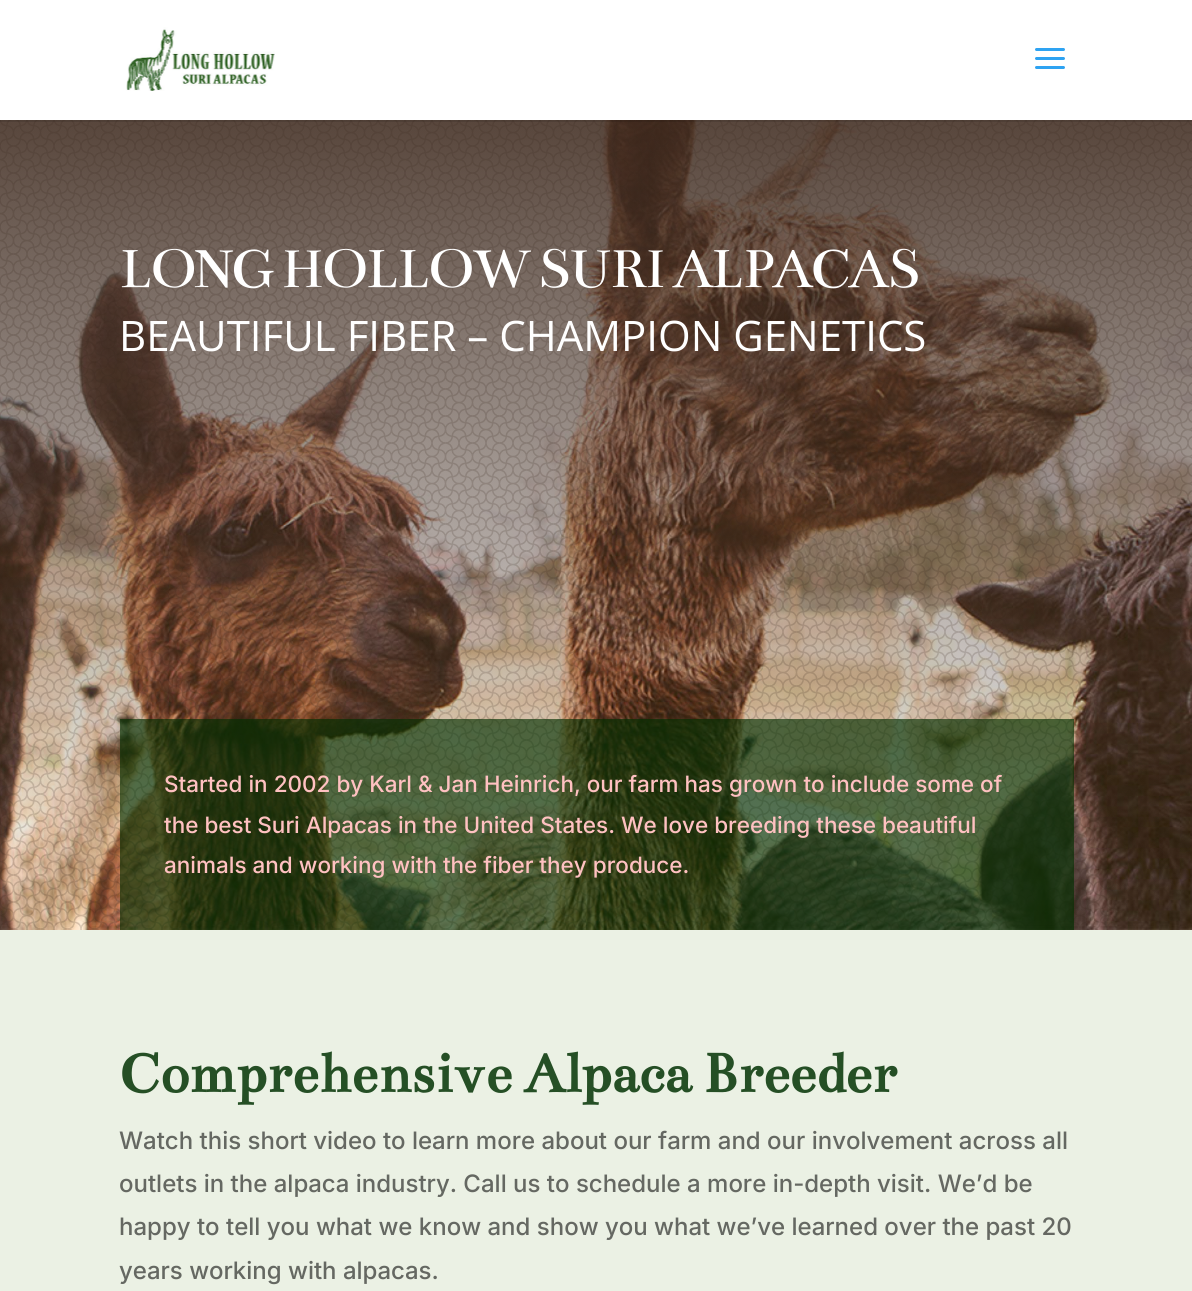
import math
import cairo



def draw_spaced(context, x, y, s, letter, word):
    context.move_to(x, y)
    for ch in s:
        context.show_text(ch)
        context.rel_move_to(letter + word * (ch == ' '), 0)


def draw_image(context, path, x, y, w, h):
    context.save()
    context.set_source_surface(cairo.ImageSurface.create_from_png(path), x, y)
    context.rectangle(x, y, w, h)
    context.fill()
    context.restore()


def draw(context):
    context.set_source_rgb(1, 1, 1)
    context.paint()
    draw_image(context, "images/3.png", 0, 120, 1192, 810)
    draw_image(context, "images/4.png", 0, 120, 1192, 810)
    context.set_source_rgba(0, 0, 0, 0.1)
    context.new_path()
    context.move_to(0, 120)
    context.line_to(0, 122)
    context.line_to(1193, 122)
    context.line_to(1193, 2)
    context.line_to(1192, 2)
    context.line_to(1192, 120)
    context.close_path()
    context.fill()
    draw_image(context, "images/1.png", 126, 27, 149, 64)
    draw_image(context, "images/2.png", 1035, 48, 30, 21)
    context.set_source_rgba(0, 48 / 255, 0, 0.64)
    context.rectangle(120, 719, 954, 211)
    context.fill()
    context.set_source_rgb(235 / 255, 241 / 255, 228 / 255)
    context.rectangle(0, 930, 1192, 361)
    context.fill()
    context.select_font_face("Bentham")
    context.set_font_size(60)
    context.set_source_rgb(1, 1, 1)
    draw_spaced(context, 119, 287, "LONG HOLLOW SURI ALPACAS", -3, 0)
    context.select_font_face("Open Sans")
    context.set_font_size(42)
    context.move_to(119, 351)
    context.show_text("BEAUTIFUL FIBER – CHAMPION GENETICS")
    context.select_font_face("Inter Medium")
    context.set_font_size(22.5)
    context.set_source_rgb(1, 193 / 255, 193 / 255)
    context.move_to(164, 792)
    context.show_text("Started in 2002 by Karl & Jan Heinrich, our farm has grown to include some of")
    context.move_to(164, 833)
    context.show_text("the best Suri Alpacas in the United States. We love breeding these beautiful")
    context.move_to(164, 873)
    context.show_text("animals and working with the fiber they produce.")
    context.select_font_face("Bentham", cairo.FontSlant.NORMAL, cairo.FontWeight.BOLD)
    context.set_font_size(60)
    context.set_source_rgb(37 / 255, 79 / 255, 37 / 255)
    context.move_to(119, 1092)
    context.show_text("Comprehensive Alpaca Breeder")
    context.select_font_face("Inter Medium")
    context.set_font_size(24)
    context.set_source_rgb(101 / 255, 104 / 255, 98 / 255)
    context.move_to(119, 1149)
    context.show_text("Watch this short video to learn more about our farm and our involvement across all")
    context.move_to(119, 1192)
    context.show_text("outlets in the alpaca industry. Call us to schedule a more in-depth visit. We’d be")
    context.move_to(119, 1235)
    context.show_text("happy to tell you what we know and show you what we’ve learned over the past 20")
    context.move_to(119, 1279)
    context.show_text("years working with alpacas.")


surface = cairo.ImageSurface(cairo.Format.RGB24, 1192, 1291)
context = cairo.Context(surface)
options = cairo.FontOptions()
options.set_hint_metrics(cairo.HintMetrics.OFF)
options.set_hint_style(cairo.HintStyle.NONE)
context.set_font_options(options)
context.set_miter_limit(4)
draw(context)
surface.write_to_png("out.png")
